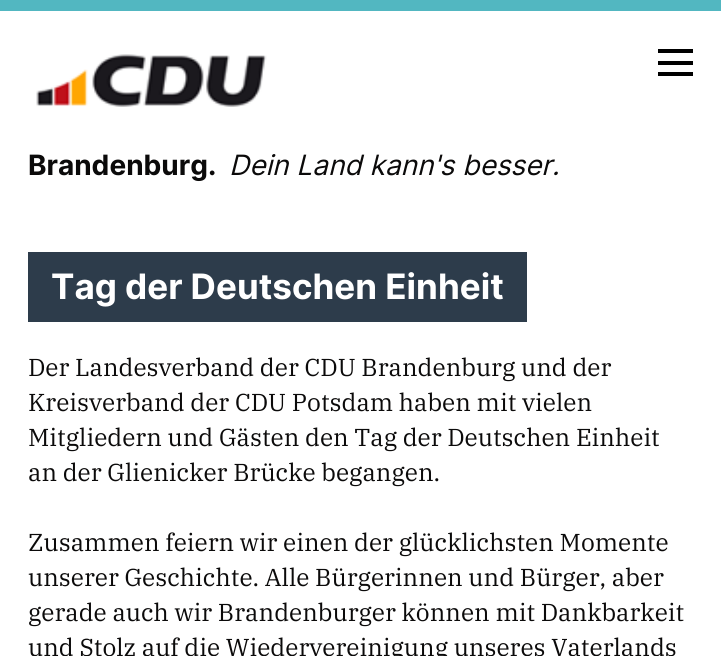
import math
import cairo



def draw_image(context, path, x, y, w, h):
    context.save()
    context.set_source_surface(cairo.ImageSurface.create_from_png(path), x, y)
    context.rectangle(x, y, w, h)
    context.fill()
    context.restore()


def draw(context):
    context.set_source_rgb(1, 1, 1)
    context.paint()
    context.set_source_rgb(82 / 255, 183 / 255, 193 / 255)
    context.rectangle(0, 0, 721, 11)
    context.fill()
    context.set_source_rgb(0, 0, 0)
    context.rectangle(658, 49, 35, 4)
    context.fill()
    context.rectangle(658, 61, 35, 4)
    context.fill()
    context.rectangle(658, 72, 35, 4)
    context.fill()
    draw_image(context, "images/1.png", 36, 54, 231, 53)
    context.set_source_rgb(45 / 255, 60 / 255, 75 / 255)
    context.rectangle(28, 252, 499, 70)
    context.fill()
    context.select_font_face("Inter", cairo.FontSlant.NORMAL, cairo.FontWeight.BOLD)
    context.set_font_size(28)
    context.set_source_rgb(11 / 255, 10 / 255, 10 / 255)
    context.move_to(28, 175)
    context.show_text("Brandenburg.")
    context.select_font_face("Inter", cairo.FontSlant.ITALIC)
    context.move_to(229, 175)
    context.show_text("Dein Land kann's besser.")
    context.select_font_face("Inter", cairo.FontSlant.NORMAL, cairo.FontWeight.BOLD)
    context.set_font_size(35)
    context.set_source_rgb(1, 1, 1)
    context.move_to(51, 299)
    context.show_text("Tag der Deutschen Einheit")
    context.select_font_face("IBM Plex Serif")
    context.set_font_size(24.5)
    context.set_source_rgb(11 / 255, 10 / 255, 10 / 255)
    context.move_to(28, 376)
    context.show_text("Der Landesverband der CDU Brandenburg und der")
    context.move_to(28, 411)
    context.show_text("Kreisverband der CDU Potsdam haben mit vielen")
    context.move_to(28, 446)
    context.show_text("Mitgliedern und Gästen den Tag der Deutschen Einheit")
    context.move_to(28, 481)
    context.show_text("an der Glienicker Brücke begangen.")
    context.move_to(28, 551)
    context.show_text("Zusammen feiern wir einen der glücklichsten Momente")
    context.move_to(28, 586)
    context.show_text("unserer Geschichte. Alle Bürgerinnen und Bürger, aber")
    context.move_to(28, 621)
    context.show_text("gerade auch wir Brandenburger können mit Dankbarkeit")
    context.move_to(28, 656)
    context.show_text("und Stolz auf die Wiedervereinigung unseres Vaterlands")


surface = cairo.ImageSurface(cairo.Format.RGB24, 721, 656)
context = cairo.Context(surface)
options = cairo.FontOptions()
options.set_hint_metrics(cairo.HintMetrics.OFF)
options.set_hint_style(cairo.HintStyle.NONE)
context.set_font_options(options)
context.set_miter_limit(4)
draw(context)
surface.write_to_png("out.png")
